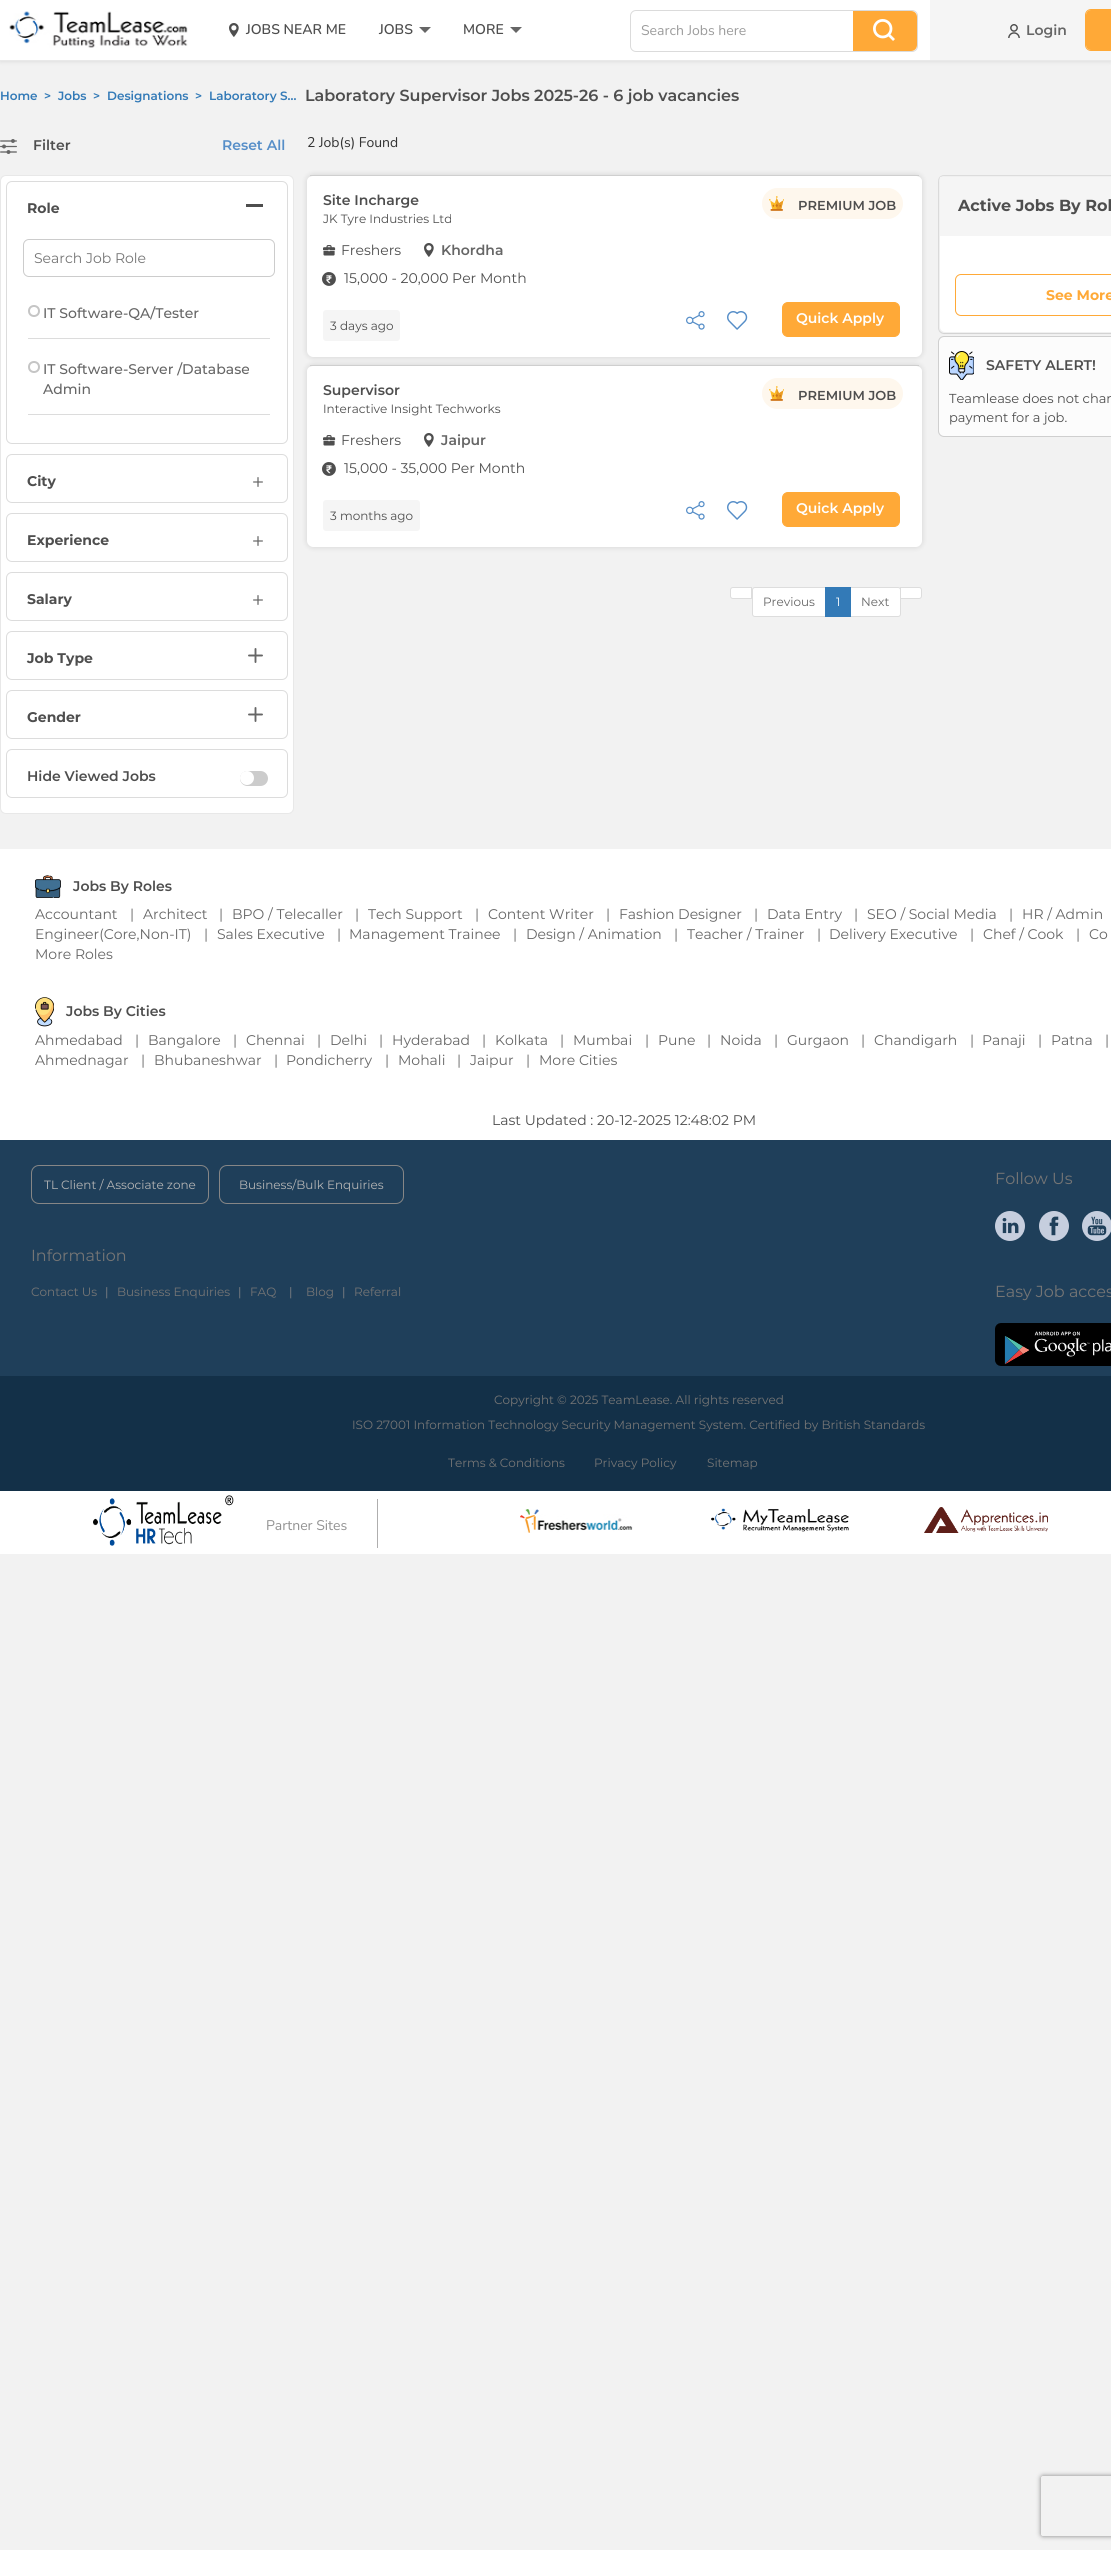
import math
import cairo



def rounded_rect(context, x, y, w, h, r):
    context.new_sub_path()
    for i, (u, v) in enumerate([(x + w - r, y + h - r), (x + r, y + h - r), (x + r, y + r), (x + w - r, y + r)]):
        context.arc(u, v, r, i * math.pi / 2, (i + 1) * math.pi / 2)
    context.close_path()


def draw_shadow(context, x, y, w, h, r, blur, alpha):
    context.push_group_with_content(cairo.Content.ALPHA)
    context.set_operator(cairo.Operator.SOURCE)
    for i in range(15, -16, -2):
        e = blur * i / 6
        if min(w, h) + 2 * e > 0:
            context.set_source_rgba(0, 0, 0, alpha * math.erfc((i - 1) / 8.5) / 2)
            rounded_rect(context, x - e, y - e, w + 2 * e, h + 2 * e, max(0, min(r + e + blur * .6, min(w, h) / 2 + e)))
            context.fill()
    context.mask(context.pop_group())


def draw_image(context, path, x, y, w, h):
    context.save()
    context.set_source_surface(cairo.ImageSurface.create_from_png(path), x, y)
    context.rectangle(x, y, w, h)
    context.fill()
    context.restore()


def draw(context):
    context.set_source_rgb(242 / 255, 242 / 255, 242 / 255)
    context.paint()
    context.set_source_rgb(0, 0, 0)
    draw_shadow(context, 0, 0, 1111, 60, 0, 3, 0.16)
    context.set_source_rgb(1, 1, 1)
    context.rectangle(0, 0, 930, 60)
    context.fill()
    context.set_source_rgb(233 / 255, 233 / 255, 233 / 255)
    context.rectangle(0, 60, 1111, 1)
    context.fill()
    draw_image(context, "images/1.png", 9, 11, 179, 37)
    draw_image(context, "images/2.png", 229, 23, 10, 14)
    context.set_source_rgb(102 / 255, 102 / 255, 102 / 255)
    context.new_path()
    context.move_to(419, 27)
    context.line_to(425, 33)
    context.line_to(431, 27)
    context.close_path()
    context.fill()
    context.new_path()
    context.move_to(510, 27)
    context.line_to(516, 33)
    context.line_to(522, 27)
    context.close_path()
    context.fill()
    rounded_rect(context, 630.5, 10.5, 287, 41, 5.5)
    context.set_source_rgb(219 / 255, 219 / 255, 219 / 255)
    context.set_line_width(1)
    context.stroke()
    context.set_source_rgb(1, 169 / 255, 55 / 255)
    context.new_path()
    context.move_to(853, 11)
    context.line_to(911, 11)
    context.curve_to(914.5, 11, 917, 13.5, 917, 17)
    context.line_to(917, 45)
    context.curve_to(917, 48.5, 914.5, 51, 911, 51)
    context.line_to(853, 51)
    context.close_path()
    context.fill()
    draw_image(context, "images/3.png", 873, 19, 22, 22)
    context.set_source_rgb(245 / 255, 245 / 255, 245 / 255)
    context.rectangle(930, 0, 181, 60)
    context.fill()
    draw_image(context, "images/4.png", 1008, 24, 12, 14)
    context.set_source_rgb(1, 169 / 255, 55 / 255)
    rounded_rect(context, 1086, 10, 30, 40, 5)
    context.fill()
    rounded_rect(context, 1085.5, 9.5, 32, 41, 5.5)
    context.stroke()
    draw_image(context, "images/5.png", 0, 139, 17, 15)
    context.set_source_rgb(1, 1, 1)
    rounded_rect(context, 0.5, 175.5, 293, 638, 5.5)
    context.fill_preserve()
    context.set_source_rgb(232 / 255, 232 / 255, 232 / 255)
    context.stroke()
    rounded_rect(context, 6.5, 181.5, 281, 262, 5.5)
    context.set_source_rgb(220 / 255, 220 / 255, 220 / 255)
    context.stroke()
    context.set_source_rgb(78 / 255, 78 / 255, 78 / 255)
    context.rectangle(246, 204, 17, 3)
    context.fill()
    rounded_rect(context, 23.5, 239.5, 251, 37, 5.5)
    context.set_source_rgb(204 / 255, 204 / 255, 204 / 255)
    context.stroke()
    context.arc(34, 311, 5, 0, 2 * math.pi)
    context.set_source_rgb(197 / 255, 197 / 255, 197 / 255)
    context.set_line_width(2)
    context.stroke()
    context.set_source_rgb(220 / 255, 220 / 255, 220 / 255)
    context.rectangle(28, 338, 242, 1)
    context.fill()
    context.arc(34, 367, 5, 0, 2 * math.pi)
    context.set_source_rgb(197 / 255, 197 / 255, 197 / 255)
    context.stroke()
    context.set_source_rgb(220 / 255, 220 / 255, 220 / 255)
    context.rectangle(28, 414, 242, 1)
    context.fill()
    rounded_rect(context, 6.5, 454.5, 281, 48, 5.5)
    context.set_line_width(1)
    context.stroke()
    draw_image(context, "images/6.png", 253, 477, 10, 10)
    rounded_rect(context, 6.5, 513.5, 281, 48, 5.5)
    context.stroke()
    draw_image(context, "images/6.png", 253, 536, 10, 10)
    rounded_rect(context, 6.5, 572.5, 281, 48, 5.5)
    context.stroke()
    draw_image(context, "images/6.png", 253, 595, 10, 10)
    rounded_rect(context, 6.5, 631.5, 281, 48, 5.5)
    context.stroke()
    draw_image(context, "images/7.png", 248, 648, 15, 15)
    rounded_rect(context, 6.5, 690.5, 281, 48, 5.5)
    context.stroke()
    draw_image(context, "images/7.png", 248, 707, 15, 15)
    rounded_rect(context, 6.5, 749.5, 281, 48, 5.5)
    context.stroke()
    context.set_source_rgb(204 / 255, 204 / 255, 204 / 255)
    rounded_rect(context, 240, 771, 28, 15, 7.5)
    context.fill()
    context.set_source_rgb(1, 1, 1)
    context.arc(247, 778, 7, 0, 2 * math.pi)
    context.fill()
    context.set_source_rgb(0, 0, 0)
    draw_shadow(context, 307, 175, 615, 182, 6, 3, 0.14)
    context.set_source_rgb(1, 1, 1)
    context.new_path()
    context.move_to(313, 176)
    context.line_to(916, 176)
    context.curve_to(919, 176, 922, 178, 922, 181)
    context.line_to(922, 351)
    context.curve_to(922, 354, 919, 357, 916, 357)
    context.line_to(313, 357)
    context.curve_to(310, 357, 307, 354, 307, 351)
    context.line_to(307, 181)
    context.curve_to(307, 178, 310, 176, 313, 176)
    context.close_path()
    context.fill()
    context.set_source_rgb(207 / 255, 207 / 255, 207 / 255)
    context.rectangle(310, 175, 609, 1)
    context.fill()
    context.set_source_rgb(254 / 255, 247 / 255, 237 / 255)
    rounded_rect(context, 762, 188, 141, 31, 15.5)
    context.fill()
    draw_image(context, "images/8.png", 769, 196, 15, 15)
    draw_image(context, "images/9.png", 323, 245, 13, 11)
    draw_image(context, "images/2.png", 424, 243, 10, 14)
    draw_image(context, "images/10.png", 322, 272, 14, 14)
    context.set_source_rgb(245 / 255, 245 / 255, 245 / 255)
    rounded_rect(context, 323, 310, 77, 31, 3)
    context.fill()
    draw_image(context, "images/11.png", 686, 311, 19, 19)
    draw_image(context, "images/12.png", 727, 311, 21, 19)
    context.set_source_rgb(1, 169 / 255, 55 / 255)
    rounded_rect(context, 782.5, 302.5, 117, 34, 5.5)
    context.fill_preserve()
    context.stroke()
    context.set_source_rgb(0, 0, 0)
    draw_shadow(context, 307, 365, 615, 182, 6, 3, 0.14)
    context.set_source_rgb(1, 1, 1)
    context.new_path()
    context.move_to(313, 366)
    context.line_to(916, 366)
    context.curve_to(919, 366, 922, 368, 922, 371)
    context.line_to(922, 541)
    context.curve_to(922, 544, 919, 547, 916, 547)
    context.line_to(313, 547)
    context.curve_to(310, 547, 307, 544, 307, 541)
    context.line_to(307, 371)
    context.curve_to(307, 368, 310, 366, 313, 366)
    context.close_path()
    context.fill()
    context.set_source_rgb(207 / 255, 207 / 255, 207 / 255)
    context.rectangle(310, 365, 609, 1)
    context.fill()
    context.set_source_rgb(254 / 255, 247 / 255, 237 / 255)
    rounded_rect(context, 762, 378, 141, 31, 15.5)
    context.fill()
    draw_image(context, "images/8.png", 769, 386, 15, 15)
    draw_image(context, "images/9.png", 323, 435, 13, 11)
    draw_image(context, "images/2.png", 424, 433, 10, 14)
    draw_image(context, "images/10.png", 322, 462, 14, 14)
    context.set_source_rgb(245 / 255, 245 / 255, 245 / 255)
    rounded_rect(context, 323, 500, 97, 31, 3)
    context.fill()
    draw_image(context, "images/11.png", 686, 501, 19, 19)
    draw_image(context, "images/12.png", 727, 501, 21, 19)
    context.set_source_rgb(1, 169 / 255, 55 / 255)
    rounded_rect(context, 782.5, 492.5, 117, 34, 5.5)
    context.fill_preserve()
    context.stroke()
    context.set_source_rgb(1, 1, 1)
    context.new_path()
    context.move_to(733, 587.5)
    context.line_to(751.5, 587.5)
    context.line_to(751.5, 598.5)
    context.line_to(733, 598.5)
    context.curve_to(731.5, 598.5, 730.5, 597.5, 730.5, 596)
    context.line_to(730.5, 590)
    context.curve_to(730.5, 588.5, 731.5, 587.5, 733, 587.5)
    context.close_path()
    context.fill_preserve()
    context.set_source_rgb(221 / 255, 221 / 255, 221 / 255)
    context.stroke()
    context.set_source_rgb(1, 1, 1)
    context.new_path()
    context.move_to(755, 587.5)
    context.line_to(825.5, 587.5)
    context.line_to(825.5, 616.5)
    context.line_to(755, 616.5)
    context.curve_to(753.5, 616.5, 752.5, 615.5, 752.5, 614)
    context.line_to(752.5, 590)
    context.curve_to(752.5, 588.5, 753.5, 587.5, 755, 587.5)
    context.close_path()
    context.fill_preserve()
    context.set_source_rgb(221 / 255, 221 / 255, 221 / 255)
    context.stroke()
    context.set_source_rgb(1, 1, 1)
    context.new_path()
    context.move_to(850.5, 587.5)
    context.line_to(898, 587.5)
    context.curve_to(899.5, 587.5, 900.5, 588.5, 900.5, 590)
    context.line_to(900.5, 614)
    context.curve_to(900.5, 615.5, 899.5, 616.5, 898, 616.5)
    context.line_to(850.5, 616.5)
    context.close_path()
    context.fill_preserve()
    context.set_source_rgb(221 / 255, 221 / 255, 221 / 255)
    context.stroke()
    context.set_source_rgb(51 / 255, 122 / 255, 183 / 255)
    context.rectangle(825, 587, 26, 30)
    context.fill()
    context.set_source_rgb(1, 1, 1)
    context.new_path()
    context.move_to(900.5, 587.5)
    context.line_to(919, 587.5)
    context.curve_to(920.5, 587.5, 921.5, 588.5, 921.5, 590)
    context.line_to(921.5, 596)
    context.curve_to(921.5, 597.5, 920.5, 598.5, 919, 598.5)
    context.line_to(900.5, 598.5)
    context.close_path()
    context.fill_preserve()
    context.set_source_rgb(221 / 255, 221 / 255, 221 / 255)
    context.stroke()
    rounded_rect(context, 938.5, 175.5, 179, 158, 5.5)
    context.set_source_rgb(220 / 255, 220 / 255, 220 / 255)
    context.stroke()
    context.set_source_rgb(0, 0, 0)
    draw_shadow(context, 939, 177, 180, 157, 6, 0.5, 0.05)
    context.set_source_rgb(1, 1, 1)
    rounded_rect(context, 939.5, 176.5, 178, 156, 5.5)
    context.fill_preserve()
    context.set_source_rgb(240 / 255, 240 / 255, 240 / 255)
    context.stroke()
    context.set_source_rgb(245 / 255, 245 / 255, 245 / 255)
    context.rectangle(940, 177, 171, 59)
    context.fill()
    rounded_rect(context, 955.5, 274.5, 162, 41, 5.5)
    context.set_source_rgb(1, 169 / 255, 55 / 255)
    context.stroke()
    context.set_source_rgb(252 / 255, 252 / 255, 252 / 255)
    rounded_rect(context, 939, 337, 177, 99, 5)
    context.fill()
    rounded_rect(context, 938.5, 336.5, 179, 100, 5.5)
    context.set_source_rgb(207 / 255, 207 / 255, 207 / 255)
    context.stroke()
    draw_image(context, "images/13.png", 949, 351, 25, 29)
    context.set_source_rgb(1, 1, 1)
    context.rectangle(0, 849, 1111, 291)
    context.fill()
    draw_image(context, "images/14.png", 35, 875, 26, 23)
    draw_image(context, "images/15.png", 35, 997, 19, 30)
    context.set_source_rgb(31 / 255, 63 / 255, 90 / 255)
    context.rectangle(0, 1140, 1111, 236)
    context.fill()
    rounded_rect(context, 31.5, 1165.5, 177, 38, 7.5)
    context.set_source_rgb(134 / 255, 134 / 255, 134 / 255)
    context.stroke()
    rounded_rect(context, 219.5, 1165.5, 184, 38, 7.5)
    context.stroke()
    draw_image(context, "images/16.png", 995, 1211, 30, 30)
    draw_image(context, "images/17.png", 1039, 1211, 30, 30)
    draw_image(context, "images/18.png", 1082, 1211, 29, 30)
    draw_image(context, "images/19.png", 995, 1323, 116, 43)
    context.set_source_rgb(19 / 255, 48 / 255, 72 / 255)
    context.rectangle(0, 1376, 1111, 115)
    context.fill()
    context.set_source_rgb(1, 1, 1)
    context.rectangle(0, 1491, 1111, 63)
    context.fill()
    draw_image(context, "images/20.png", 93, 1495, 141, 51)
    context.set_source_rgb(175 / 255, 174 / 255, 174 / 255)
    context.rectangle(377, 1499, 1, 49)
    context.fill()
    draw_image(context, "images/21.png", 520, 1509, 113, 24)
    draw_image(context, "images/22.png", 711, 1508, 138, 24)
    draw_image(context, "images/23.png", 924, 1507, 124, 26)
    context.save()
    context.set_fill_rule(cairo.FillRule.EVEN_ODD)
    context.new_path()
    context.move_to(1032, 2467)
    context.line_to(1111, 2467)
    context.line_to(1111, 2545)
    context.line_to(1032, 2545)
    context.close_path()
    context.move_to(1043, 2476)
    context.line_to(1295, 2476)
    context.curve_to(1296, 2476, 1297, 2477, 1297, 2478)
    context.line_to(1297, 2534)
    context.curve_to(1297, 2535, 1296, 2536, 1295, 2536)
    context.line_to(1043, 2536)
    context.curve_to(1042, 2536, 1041, 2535, 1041, 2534)
    context.line_to(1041, 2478)
    context.curve_to(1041, 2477, 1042, 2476, 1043, 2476)
    context.close_path()
    context.clip()
    context.set_source_rgb(128 / 255, 128 / 255, 128 / 255)
    draw_shadow(context, 1041, 2476, 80, 60, 2, 2.5, 1)
    context.restore()
    context.select_font_face("Nunito SemiBold")
    context.set_font_size(14)
    context.set_source_rgb(78 / 255, 78 / 255, 78 / 255)
    context.move_to(246, 34)
    context.show_text("JOBS NEAR ME")
    context.move_to(379, 34)
    context.show_text("JOBS")
    context.move_to(463, 34)
    context.show_text("MORE")
    context.select_font_face("Nunito")
    context.set_source_rgb(156 / 255, 156 / 255, 156 / 255)
    context.move_to(641, 35)
    context.show_text("Search Jobs here")
    context.select_font_face("Montserrat SemiBold")
    context.set_source_rgb(102 / 255, 102 / 255, 102 / 255)
    context.move_to(1026, 35)
    context.show_text("Login")
    context.set_font_size(12)
    context.set_source_rgb(51 / 255, 122 / 255, 183 / 255)
    context.move_to(0, 100)
    context.show_text("Home")
    context.move_to(44, 100)
    context.show_text(">")
    context.move_to(58, 100)
    context.show_text("Jobs")
    context.move_to(93, 100)
    context.show_text(">")
    context.move_to(107, 100)
    context.show_text("Designations")
    context.move_to(195, 100)
    context.show_text(">")
    context.move_to(209, 100)
    context.show_text("Laboratory S…")
    context.set_font_size(16)
    context.set_source_rgb(78 / 255, 78 / 255, 78 / 255)
    context.move_to(305, 101)
    context.show_text("Laboratory Supervisor Jobs 2025-26 - 6 job vacancies")
    context.set_font_size(14)
    context.move_to(33, 150)
    context.show_text("Filter")
    context.set_source_rgb(86 / 255, 142 / 255, 200 / 255)
    context.move_to(222, 150)
    context.show_text("Reset All")
    context.select_font_face("Nunito")
    context.set_source_rgb(51 / 255, 51 / 255, 51 / 255)
    context.move_to(307, 147)
    context.show_text("2 Job(s) Found")
    context.select_font_face("Montserrat", cairo.FontSlant.NORMAL, cairo.FontWeight.BOLD)
    context.set_source_rgb(78 / 255, 78 / 255, 78 / 255)
    context.move_to(27, 213)
    context.show_text("Role")
    context.select_font_face("Montserrat")
    context.set_source_rgb(117 / 255, 117 / 255, 117 / 255)
    context.move_to(34, 263)
    context.show_text("Search Job Role")
    context.select_font_face("Montserrat Medium")
    context.set_source_rgb(102 / 255, 102 / 255, 102 / 255)
    context.move_to(43, 318)
    context.show_text("IT Software-QA/Tester")
    context.move_to(43, 374)
    context.show_text("IT Software-Server /Database")
    context.move_to(43, 394)
    context.show_text("Admin")
    context.select_font_face("Montserrat", cairo.FontSlant.NORMAL, cairo.FontWeight.BOLD)
    context.set_source_rgb(78 / 255, 78 / 255, 78 / 255)
    context.move_to(27, 486)
    context.show_text("City")
    context.move_to(27, 545)
    context.show_text("Experience")
    context.move_to(27, 604)
    context.show_text("Salary")
    context.move_to(27, 663)
    context.show_text("Job Type")
    context.move_to(27, 722)
    context.show_text("Gender")
    context.select_font_face("Montserrat SemiBold")
    context.move_to(27, 781)
    context.show_text("Hide Viewed Jobs")
    context.move_to(323, 205)
    context.show_text("Site Incharge")
    context.set_font_size(13)
    context.move_to(798, 210)
    context.show_text("PREMIUM JOB")
    context.select_font_face("Montserrat")
    context.set_font_size(12)
    context.move_to(323, 223)
    context.show_text("JK Tyre Industries Ltd")
    context.set_font_size(14)
    context.move_to(341, 255)
    context.show_text("Freshers")
    context.select_font_face("Montserrat SemiBold")
    context.set_source_rgb(102 / 255, 102 / 255, 102 / 255)
    context.move_to(441, 255)
    context.show_text("Khordha")
    context.select_font_face("Montserrat")
    context.set_source_rgb(78 / 255, 78 / 255, 78 / 255)
    context.move_to(344, 283)
    context.show_text("15,000 - 20,000 Per Month")
    context.set_font_size(12)
    context.move_to(330, 330)
    context.show_text("3 days ago")
    context.select_font_face("Montserrat SemiBold")
    context.set_font_size(14)
    context.set_source_rgb(1, 1, 1)
    context.move_to(796, 323)
    context.show_text("Quick Apply")
    context.set_source_rgb(78 / 255, 78 / 255, 78 / 255)
    context.move_to(323, 395)
    context.show_text("Supervisor")
    context.set_font_size(13)
    context.move_to(798, 400)
    context.show_text("PREMIUM JOB")
    context.select_font_face("Montserrat")
    context.set_font_size(12)
    context.move_to(323, 413)
    context.show_text("Interactive Insight Techworks")
    context.set_font_size(14)
    context.move_to(341, 445)
    context.show_text("Freshers")
    context.select_font_face("Montserrat SemiBold")
    context.set_source_rgb(102 / 255, 102 / 255, 102 / 255)
    context.move_to(441, 445)
    context.show_text("Jaipur")
    context.select_font_face("Montserrat")
    context.set_source_rgb(78 / 255, 78 / 255, 78 / 255)
    context.move_to(344, 473)
    context.show_text("15,000 - 35,000 Per Month")
    context.set_font_size(12)
    context.move_to(330, 520)
    context.show_text("3 months ago")
    context.select_font_face("Montserrat SemiBold")
    context.set_font_size(14)
    context.set_source_rgb(1, 1, 1)
    context.move_to(796, 513)
    context.show_text("Quick Apply")
    context.select_font_face("Montserrat")
    context.set_font_size(12)
    context.set_source_rgb(102 / 255, 102 / 255, 102 / 255)
    context.move_to(763, 606)
    context.show_text("Previous")
    context.set_source_rgb(1, 1, 1)
    context.move_to(836, 606)
    context.show_text("1")
    context.set_source_rgb(102 / 255, 102 / 255, 102 / 255)
    context.move_to(861, 606)
    context.show_text("Next")
    context.select_font_face("Montserrat", cairo.FontSlant.NORMAL, cairo.FontWeight.BOLD)
    context.set_font_size(16)
    context.set_source_rgb(78 / 255, 78 / 255, 78 / 255)
    context.move_to(958, 211)
    context.show_text("Active Jobs By Rol")
    context.set_font_size(14)
    context.set_source_rgb(1, 169 / 255, 55 / 255)
    context.move_to(1046, 300)
    context.show_text("See More")
    context.select_font_face("Montserrat SemiBold")
    context.set_source_rgb(78 / 255, 78 / 255, 78 / 255)
    context.move_to(986, 370)
    context.show_text("SAFETY ALERT!")
    context.select_font_face("Montserrat")
    context.set_font_size(13)
    context.move_to(949, 403)
    context.show_text("Teamlease does not char")
    context.move_to(949, 422)
    context.show_text("payment for a job.")
    context.select_font_face("Montserrat SemiBold")
    context.set_font_size(14)
    context.move_to(73, 891)
    context.show_text("Jobs By Roles")
    context.select_font_face("Montserrat")
    context.set_source_rgb(102 / 255, 102 / 255, 102 / 255)
    context.move_to(35, 919)
    context.show_text("Accountant")
    context.move_to(130, 919)
    context.show_text("|")
    context.move_to(143, 919)
    context.show_text("Architect")
    context.move_to(219, 919)
    context.show_text("|")
    context.move_to(232, 919)
    context.show_text("BPO / Telecaller")
    context.move_to(355, 919)
    context.show_text("|")
    context.move_to(368, 919)
    context.show_text("Tech Support")
    context.move_to(475, 919)
    context.show_text("|")
    context.move_to(488, 919)
    context.show_text("Content Writer")
    context.move_to(606, 919)
    context.show_text("|")
    context.move_to(619, 919)
    context.show_text("Fashion Designer")
    context.move_to(754, 919)
    context.show_text("|")
    context.move_to(767, 919)
    context.show_text("Data Entry")
    context.move_to(854, 919)
    context.show_text("|")
    context.move_to(867, 919)
    context.show_text("SEO / Social Media")
    context.move_to(1009, 919)
    context.show_text("|")
    context.move_to(1022, 919)
    context.show_text("HR / Admin")
    context.move_to(35, 939)
    context.show_text("Engineer(Core,Non-IT)")
    context.move_to(204, 939)
    context.show_text("|")
    context.move_to(217, 939)
    context.show_text("Sales Executive")
    context.move_to(337, 939)
    context.show_text("|")
    context.move_to(349, 939)
    context.show_text("Management Trainee")
    context.move_to(513, 939)
    context.show_text("|")
    context.move_to(526, 939)
    context.show_text("Design / Animation")
    context.move_to(674, 939)
    context.show_text("|")
    context.move_to(687, 939)
    context.show_text("Teacher / Trainer")
    context.move_to(817, 939)
    context.show_text("|")
    context.move_to(829, 939)
    context.show_text("Delivery Executive")
    context.move_to(970, 939)
    context.show_text("|")
    context.move_to(983, 939)
    context.show_text("Chef / Cook")
    context.move_to(1076, 939)
    context.show_text("|")
    context.move_to(1089, 939)
    context.show_text("Co")
    context.move_to(35, 959)
    context.show_text("More Roles")
    context.select_font_face("Montserrat SemiBold")
    context.set_source_rgb(78 / 255, 78 / 255, 78 / 255)
    context.move_to(66, 1016)
    context.show_text("Jobs By Cities")
    context.select_font_face("Montserrat")
    context.set_source_rgb(102 / 255, 102 / 255, 102 / 255)
    context.move_to(35, 1045)
    context.show_text("Ahmedabad")
    context.move_to(135, 1045)
    context.show_text("|")
    context.move_to(148, 1045)
    context.show_text("Bangalore")
    context.move_to(233, 1045)
    context.show_text("|")
    context.move_to(246, 1045)
    context.show_text("Chennai")
    context.move_to(317, 1045)
    context.show_text("|")
    context.move_to(330, 1045)
    context.show_text("Delhi")
    context.move_to(379, 1045)
    context.show_text("|")
    context.move_to(392, 1045)
    context.show_text("Hyderabad")
    context.move_to(482, 1045)
    context.show_text("|")
    context.move_to(495, 1045)
    context.show_text("Kolkata")
    context.move_to(560, 1045)
    context.show_text("|")
    context.move_to(573, 1045)
    context.show_text("Mumbai")
    context.move_to(645, 1045)
    context.show_text("|")
    context.move_to(658, 1045)
    context.show_text("Pune")
    context.move_to(707, 1045)
    context.show_text("|")
    context.move_to(720, 1045)
    context.show_text("Noida")
    context.move_to(774, 1045)
    context.show_text("|")
    context.move_to(787, 1045)
    context.show_text("Gurgaon")
    context.move_to(861, 1045)
    context.show_text("|")
    context.move_to(874, 1045)
    context.show_text("Chandigarh")
    context.move_to(970, 1045)
    context.show_text("|")
    context.move_to(982, 1045)
    context.show_text("Panaji")
    context.move_to(1038, 1045)
    context.show_text("|")
    context.move_to(1051, 1045)
    context.show_text("Patna")
    context.move_to(1105, 1045)
    context.show_text("|")
    context.move_to(35, 1065)
    context.show_text("Ahmednagar")
    context.move_to(141, 1065)
    context.show_text("|")
    context.move_to(154, 1065)
    context.show_text("Bhubaneshwar")
    context.move_to(274, 1065)
    context.show_text("|")
    context.move_to(286, 1065)
    context.show_text("Pondicherry")
    context.move_to(385, 1065)
    context.show_text("|")
    context.move_to(398, 1065)
    context.show_text("Mohali")
    context.move_to(457, 1065)
    context.show_text("|")
    context.move_to(470, 1065)
    context.show_text("Jaipur")
    context.move_to(526, 1065)
    context.show_text("|")
    context.move_to(539, 1065)
    context.show_text("More Cities")
    context.set_source_rgb(78 / 255, 78 / 255, 78 / 255)
    context.move_to(492, 1125)
    context.show_text("Last Updated : 20-12-2025 12:48:02 PM")
    context.set_font_size(12)
    context.set_source_rgb(181 / 255, 181 / 255, 181 / 255)
    context.move_to(44, 1189)
    context.show_text("TL Client / Associate zone")
    context.move_to(239, 1189)
    context.show_text("Business/Bulk Enquiries")
    context.set_font_size(16)
    context.set_source_rgb(117 / 255, 117 / 255, 117 / 255)
    context.move_to(31, 1261)
    context.show_text("Information")
    context.set_font_size(12)
    context.move_to(31, 1296)
    context.show_text("Contact Us")
    context.set_source_rgb(134 / 255, 134 / 255, 134 / 255)
    context.move_to(105, 1296)
    context.show_text("|")
    context.set_source_rgb(117 / 255, 117 / 255, 117 / 255)
    context.move_to(117, 1296)
    context.show_text("Business Enquiries")
    context.set_source_rgb(134 / 255, 134 / 255, 134 / 255)
    context.move_to(238, 1296)
    context.show_text("|")
    context.set_source_rgb(117 / 255, 117 / 255, 117 / 255)
    context.move_to(250, 1296)
    context.show_text("FAQ")
    context.set_source_rgb(134 / 255, 134 / 255, 134 / 255)
    context.move_to(289, 1296)
    context.show_text("|")
    context.set_source_rgb(117 / 255, 117 / 255, 117 / 255)
    context.move_to(306, 1296)
    context.show_text("Blog")
    context.set_source_rgb(134 / 255, 134 / 255, 134 / 255)
    context.move_to(342, 1296)
    context.show_text("|")
    context.set_source_rgb(117 / 255, 117 / 255, 117 / 255)
    context.move_to(354, 1296)
    context.show_text("Referral")
    context.set_font_size(16)
    context.move_to(995, 1184)
    context.show_text("Follow Us")
    context.move_to(995, 1297)
    context.show_text("Easy Job acces")
    context.set_font_size(12)
    context.move_to(494, 1404)
    context.show_text("Copyright © 2025 TeamLease. All rights reserved")
    context.move_to(352, 1429)
    context.show_text("ISO 27001 Information Technology Security Management System. Certified by British Standards")
    context.move_to(448, 1467)
    context.show_text("Terms & Conditions")
    context.move_to(594, 1467)
    context.show_text("Privacy Policy")
    context.move_to(707, 1467)
    context.show_text("Sitemap")
    context.select_font_face("Nunito")
    context.set_font_size(14)
    context.set_source_rgb(146 / 255, 146 / 255, 146 / 255)
    context.move_to(266, 1530)
    context.show_text("Partner Sites")


surface = cairo.ImageSurface(cairo.Format.RGB24, 1111, 2550)
context = cairo.Context(surface)
options = cairo.FontOptions()
options.set_hint_metrics(cairo.HintMetrics.OFF)
options.set_hint_style(cairo.HintStyle.NONE)
context.set_font_options(options)
context.set_miter_limit(4)
draw(context)
surface.write_to_png("out.png")
